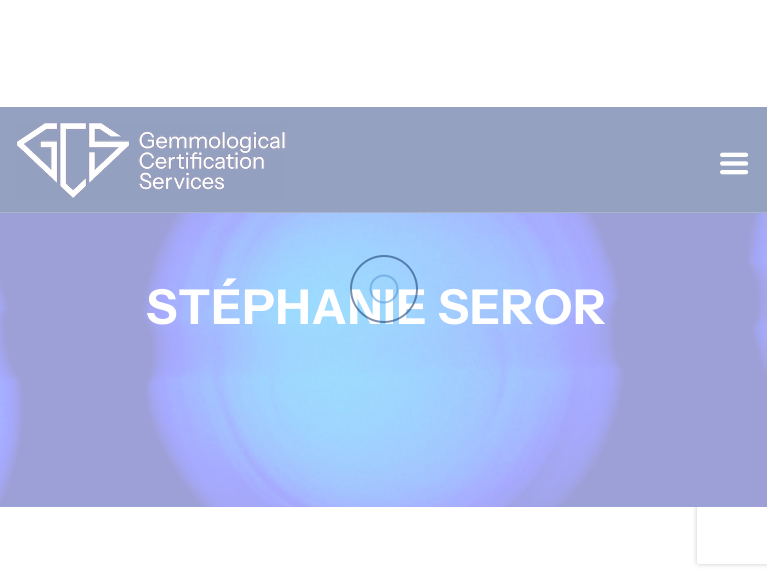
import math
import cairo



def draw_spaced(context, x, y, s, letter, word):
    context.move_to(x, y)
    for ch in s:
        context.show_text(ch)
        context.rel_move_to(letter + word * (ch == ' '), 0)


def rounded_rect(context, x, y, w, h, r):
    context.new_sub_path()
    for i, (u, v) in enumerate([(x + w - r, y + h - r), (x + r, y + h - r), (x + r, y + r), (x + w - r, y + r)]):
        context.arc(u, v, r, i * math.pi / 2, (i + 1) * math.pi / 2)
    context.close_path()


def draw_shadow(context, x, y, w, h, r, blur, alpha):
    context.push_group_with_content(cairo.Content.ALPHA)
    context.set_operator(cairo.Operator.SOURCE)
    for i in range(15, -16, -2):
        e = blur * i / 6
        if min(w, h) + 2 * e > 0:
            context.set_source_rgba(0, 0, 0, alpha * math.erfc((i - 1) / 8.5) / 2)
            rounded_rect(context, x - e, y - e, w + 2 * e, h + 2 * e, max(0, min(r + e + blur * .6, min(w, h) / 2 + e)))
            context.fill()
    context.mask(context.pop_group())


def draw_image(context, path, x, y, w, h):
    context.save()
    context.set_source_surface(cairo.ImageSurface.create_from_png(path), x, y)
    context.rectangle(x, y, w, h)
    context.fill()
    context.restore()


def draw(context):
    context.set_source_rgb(1, 1, 1)
    context.paint()
    context.set_source_rgb(148 / 255, 161 / 255, 192 / 255)
    context.rectangle(0, 107, 767, 105)
    context.fill()
    context.set_source_rgb(170 / 255, 180 / 255, 204 / 255)
    context.rectangle(0, 212, 767, 1)
    context.fill()
    draw_image(context, "images/1.png", 15, 122, 271, 78)
    draw_image(context, "images/2.png", 720, 152, 29, 23)
    context.save()
    context.set_fill_rule(cairo.FillRule.EVEN_ODD)
    context.new_path()
    context.move_to(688, 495)
    context.line_to(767, 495)
    context.line_to(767, 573)
    context.line_to(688, 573)
    context.close_path()
    context.move_to(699, 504)
    context.line_to(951, 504)
    context.curve_to(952, 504, 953, 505, 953, 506)
    context.line_to(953, 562)
    context.curve_to(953, 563, 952, 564, 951, 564)
    context.line_to(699, 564)
    context.curve_to(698, 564, 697, 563, 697, 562)
    context.line_to(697, 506)
    context.curve_to(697, 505, 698, 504, 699, 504)
    context.close_path()
    context.clip()
    context.set_source_rgb(202 / 255, 202 / 255, 202 / 255)
    draw_shadow(context, 697, 504, 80, 60, 2, 2.5, 1)
    context.restore()
    draw_image(context, "images/3.png", 0, 213, 767, 294)
    context.select_font_face("Instrument Sans", cairo.FontSlant.NORMAL, cairo.FontWeight.BOLD)
    context.set_font_size(48)
    context.set_source_rgb(1, 1, 1)
    draw_spaced(context, 146, 324, "STÉPHANIE SEROR", 1, 0)
    context.new_path()
    context.arc(384, 289, 33, 0, 2 * math.pi)
    context.set_source_rgba(29 / 255, 63 / 255, 114 / 255, 0.58)
    context.stroke()
    context.arc(384, 289, 13.5, 0, 2 * math.pi)
    context.set_source_rgba(86 / 255, 153 / 255, 210 / 255, 0.58)
    context.stroke()


surface = cairo.ImageSurface(cairo.Format.RGB24, 767, 578)
context = cairo.Context(surface)
options = cairo.FontOptions()
options.set_hint_metrics(cairo.HintMetrics.OFF)
options.set_hint_style(cairo.HintStyle.NONE)
context.set_font_options(options)
context.set_miter_limit(4)
draw(context)
surface.write_to_png("out.png")
